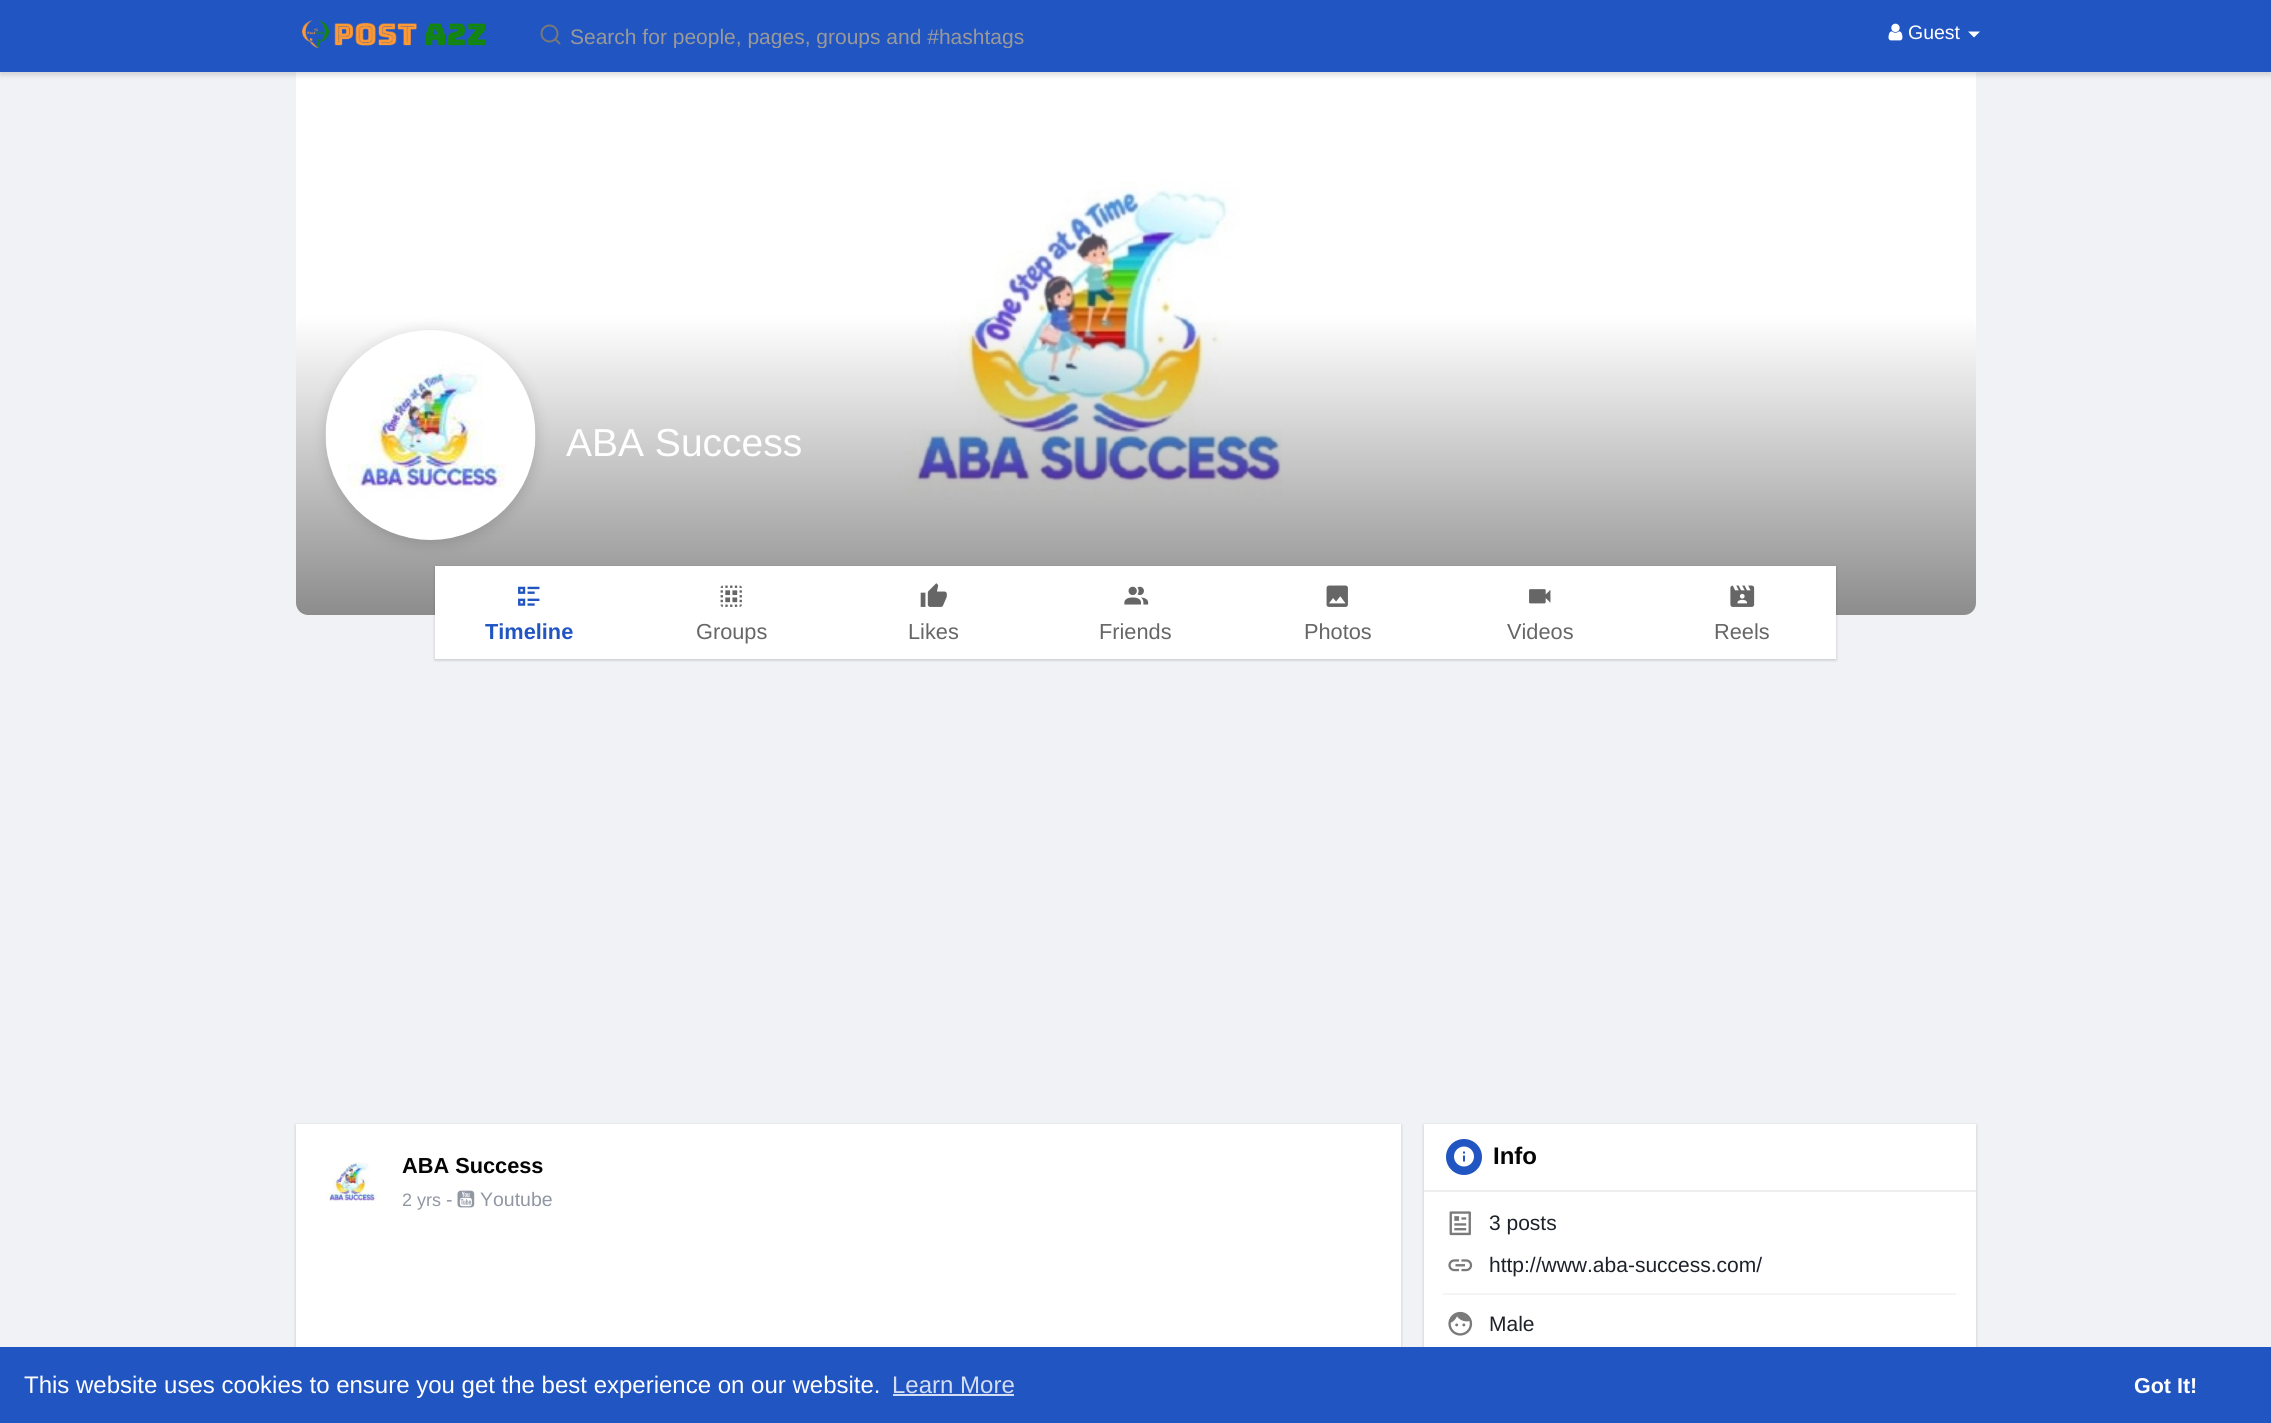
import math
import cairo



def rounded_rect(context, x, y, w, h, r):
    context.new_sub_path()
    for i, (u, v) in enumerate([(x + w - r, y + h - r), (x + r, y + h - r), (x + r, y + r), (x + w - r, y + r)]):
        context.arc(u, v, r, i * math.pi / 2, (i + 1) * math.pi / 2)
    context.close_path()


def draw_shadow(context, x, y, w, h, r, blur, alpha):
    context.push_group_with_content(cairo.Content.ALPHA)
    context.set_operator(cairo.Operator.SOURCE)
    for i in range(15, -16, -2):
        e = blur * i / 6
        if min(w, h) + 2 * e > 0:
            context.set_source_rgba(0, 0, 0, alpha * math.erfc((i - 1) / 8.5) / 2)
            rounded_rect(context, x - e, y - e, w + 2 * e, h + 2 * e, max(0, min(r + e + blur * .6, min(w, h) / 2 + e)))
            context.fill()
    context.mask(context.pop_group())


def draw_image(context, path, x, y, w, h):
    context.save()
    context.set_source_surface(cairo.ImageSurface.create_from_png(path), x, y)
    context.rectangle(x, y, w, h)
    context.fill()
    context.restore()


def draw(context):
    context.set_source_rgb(240 / 255, 242 / 255, 245 / 255)
    context.paint()
    context.set_source_rgb(1, 1, 1)
    context.new_path()
    context.move_to(296, 68)
    context.line_to(1976, 68)
    context.line_to(1976, 603)
    context.curve_to(1976, 609.5, 1970.5, 615, 1964, 615)
    context.line_to(308, 615)
    context.curve_to(301.5, 615, 296, 609.5, 296, 603)
    context.close_path()
    context.fill()
    context.set_source_rgb(0, 0, 0)
    draw_shadow(context, 0, 3, 2271, 72, 0, 3, 0.15)
    context.set_source_rgb(33 / 255, 85 / 255, 193 / 255)
    context.rectangle(0, 0, 2271, 72)
    context.fill()
    draw_image(context, "images/1.png", 302, 20, 184, 29)
    context.arc(549.5, 33.5, 8, 0, 2 * math.pi)
    context.set_source_rgb(120 / 255, 120 / 255, 120 / 255)
    context.stroke()
    context.new_path()
    context.move_to(559.5, 43.5)
    context.line_to(555, 39)
    context.set_line_cap(cairo.LineCap.ROUND)
    context.set_line_join(cairo.LineJoin.ROUND)
    context.stroke()
    draw_image(context, "images/2.png", 1888, 23, 15, 18)
    context.set_source_rgb(1, 1, 1)
    context.new_path()
    context.move_to(1968, 31.5)
    context.line_to(1980, 31.5)
    context.line_to(1974, 37.5)
    context.close_path()
    context.fill()
    draw_image(context, "images/3.png", 296, 181, 986, 434)
    gradient = cairo.LinearGradient(1136, 315, 1136, 615)
    gradient.add_color_stop_rgba(0, 0, 0, 0, 0)
    gradient.add_color_stop_rgba(1, 0, 0, 0, 0.45)
    context.set_source(gradient)
    rounded_rect(context, 296, 315, 1680, 300, 12)
    context.fill()
    context.set_source_rgb(0, 0, 0)
    draw_shadow(context, 435, 567, 1401, 93, 0, 1.5, 0.2)
    context.set_source_rgb(1, 1, 1)
    context.rectangle(435, 566, 1401, 93)
    context.fill()
    context.set_source_rgb(0, 0, 0)
    draw_shadow(context, 326, 333, 210, 210, 105, 7.5, 0.15)
    draw_image(context, "images/4.png", 325, 330, 211, 210)
    draw_image(context, "images/5.png", 518, 586, 22, 20)
    draw_image(context, "images/6.png", 720, 585, 22, 22)
    draw_image(context, "images/7.png", 920, 583, 27, 24)
    draw_image(context, "images/8.png", 1124, 586, 25, 19)
    draw_image(context, "images/9.png", 1326, 585, 22, 22)
    draw_image(context, "images/10.png", 1529, 589, 22, 15)
    draw_image(context, "images/11.png", 1730, 585, 25, 22)
    draw_shadow(context, 296, 1125, 1105, 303, 0, 1.5, 0.2)
    context.set_source_rgb(1, 1, 1)
    context.rectangle(296, 1124, 1105, 223)
    context.fill()
    draw_image(context, "images/12.png", 325, 1162, 52, 39)
    draw_image(context, "images/13.png", 457, 1190, 18, 18)
    context.set_source_rgb(0, 0, 0)
    draw_shadow(context, 1424, 1125, 552, 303, 0, 1.5, 0.2)
    context.set_source_rgb(1, 1, 1)
    context.rectangle(1424, 1124, 552, 223)
    context.fill()
    context.set_source_rgb(238 / 255, 238 / 255, 238 / 255)
    context.rectangle(1424, 1190, 552, 2)
    context.fill()
    context.set_source_rgb(33 / 255, 85 / 255, 193 / 255)
    context.arc(1464, 1157, 18, 0, 2 * math.pi)
    context.fill()
    draw_image(context, "images/14.png", 1454, 1146, 20, 21)
    draw_image(context, "images/15.png", 1449, 1211, 22, 25)
    draw_image(context, "images/16.png", 1448, 1259, 25, 13)
    context.set_source_rgb(244 / 255, 244 / 255, 244 / 255)
    context.rectangle(1443, 1293, 513, 2)
    context.fill()
    draw_image(context, "images/17.png", 1448, 1311, 25, 25)
    context.set_source_rgb(33 / 255, 85 / 255, 193 / 255)
    context.rectangle(0, 1347, 2271, 76)
    context.fill()
    context.set_source_rgb(211 / 255, 221 / 255, 243 / 255)
    context.rectangle(893, 1394, 121, 2)
    context.fill()
    context.save()
    context.rectangle(570, 24, 482, 24)
    context.clip()
    context.select_font_face("Liberation Sans")
    context.set_font_size(21)
    context.set_source_rgb(153 / 255, 153 / 255, 153 / 255)
    context.move_to(570, 44)
    context.show_text("Search for people, pages, groups and #hashtags")
    context.restore()
    context.select_font_face("Liberation Sans")
    context.set_font_size(19.5)
    context.set_source_rgb(1, 1, 1)
    context.move_to(1908, 39)
    context.show_text("Guest")
    context.set_font_size(39)
    context.move_to(566, 456)
    context.show_text("ABA Success")
    context.select_font_face("Liberation Sans", cairo.FontSlant.NORMAL, cairo.FontWeight.BOLD)
    context.set_font_size(21.75)
    context.set_source_rgb(33 / 255, 85 / 255, 193 / 255)
    context.move_to(485, 639)
    context.show_text("Timeline")
    context.select_font_face("Liberation Sans")
    context.set_source_rgb(102 / 255, 102 / 255, 102 / 255)
    context.move_to(696, 639)
    context.show_text("Groups")
    context.move_to(908, 639)
    context.show_text("Likes")
    context.move_to(1099, 639)
    context.show_text("Friends")
    context.move_to(1304, 639)
    context.show_text("Photos")
    context.move_to(1507, 639)
    context.show_text("Videos")
    context.move_to(1714, 639)
    context.show_text("Reels")
    context.select_font_face("Liberation Sans", cairo.FontSlant.NORMAL, cairo.FontWeight.BOLD)
    context.set_source_rgb(5 / 255, 5 / 255, 5 / 255)
    context.move_to(402, 1173)
    context.show_text("ABA Success")
    context.select_font_face("Liberation Sans")
    context.set_font_size(18)
    context.set_source_rgb(145 / 255, 151 / 255, 163 / 255)
    context.move_to(402, 1206)
    context.show_text("2 yrs")
    context.set_font_size(19.5)
    context.move_to(446, 1206)
    context.show_text("-")
    context.move_to(480, 1206)
    context.show_text("Youtube")
    context.select_font_face("Liberation Sans", cairo.FontSlant.NORMAL, cairo.FontWeight.BOLD)
    context.set_font_size(24)
    context.set_source_rgb(5 / 255, 5 / 255, 5 / 255)
    context.move_to(1493, 1164)
    context.show_text("Info")
    context.select_font_face("Liberation Sans")
    context.set_font_size(21)
    context.set_source_rgb(29 / 255, 33 / 255, 41 / 255)
    context.move_to(1489, 1230)
    context.show_text("3 posts")
    context.move_to(1489, 1272)
    context.show_text("http://www.aba-success.com/")
    context.move_to(1489, 1331)
    context.show_text("Male")
    context.set_font_size(24)
    context.set_source_rgb(1, 1, 1)
    context.move_to(24, 1393)
    context.show_text("This website uses cookies to ensure you get the best experience on our website.")
    context.set_source_rgb(211 / 255, 221 / 255, 243 / 255)
    context.move_to(892, 1393)
    context.show_text("Learn More")
    context.select_font_face("Liberation Sans", cairo.FontSlant.NORMAL, cairo.FontWeight.BOLD)
    context.set_font_size(21.5)
    context.set_source_rgb(1, 1, 1)
    context.move_to(2134, 1393)
    context.show_text("Got It!")


surface = cairo.ImageSurface(cairo.Format.RGB24, 2271, 1423)
context = cairo.Context(surface)
options = cairo.FontOptions()
options.set_hint_metrics(cairo.HintMetrics.OFF)
options.set_hint_style(cairo.HintStyle.NONE)
context.set_font_options(options)
context.set_miter_limit(4)
draw(context)
surface.write_to_png("out.png")
